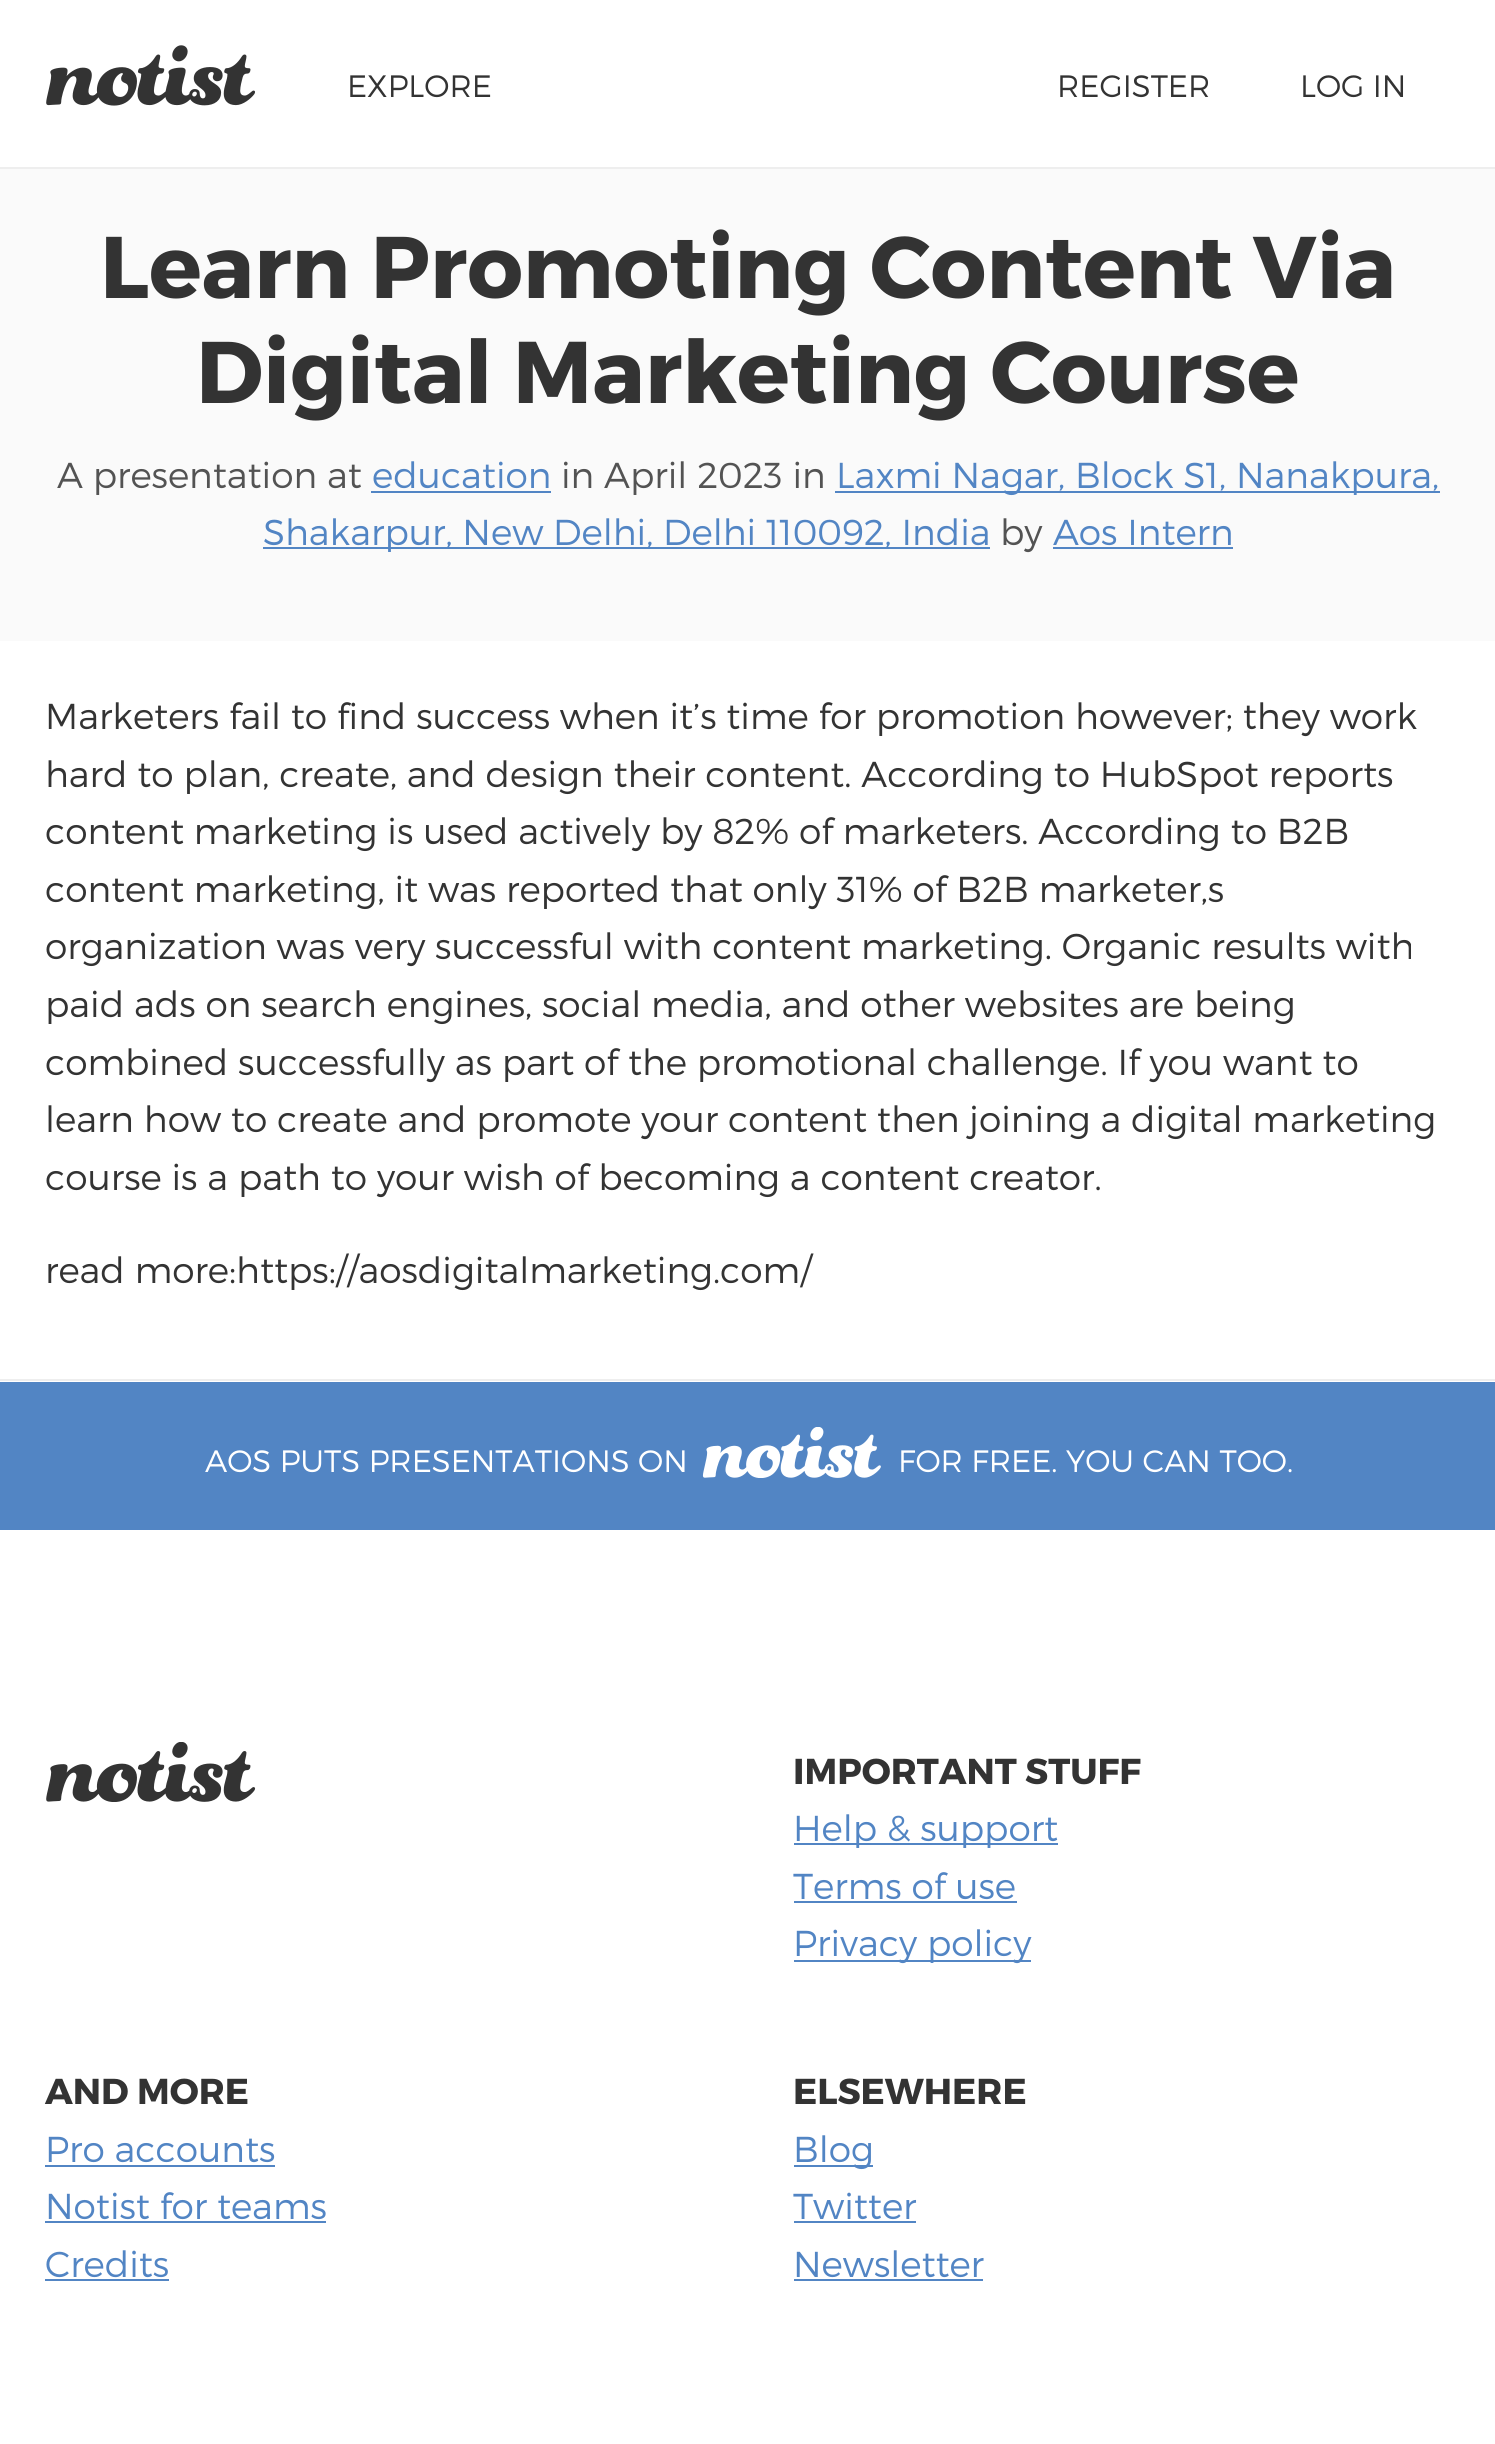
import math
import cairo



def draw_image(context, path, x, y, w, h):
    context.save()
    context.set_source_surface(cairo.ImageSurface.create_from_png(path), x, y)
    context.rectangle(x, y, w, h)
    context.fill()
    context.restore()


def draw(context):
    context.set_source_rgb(1, 1, 1)
    context.paint()
    context.set_source_rgb(238 / 255, 238 / 255, 238 / 255)
    context.rectangle(0, 167, 1495, 2)
    context.fill()
    draw_image(context, "images/1.png", 46, 45, 209, 61)
    context.set_source_rgb(250 / 255, 250 / 255, 250 / 255)
    context.rectangle(0, 169, 1495, 472)
    context.fill()
    context.set_source_rgb(82 / 255, 133 / 255, 196 / 255)
    context.rectangle(371, 491, 180, 2)
    context.fill()
    context.rectangle(835, 491, 605, 2)
    context.fill()
    context.rectangle(263, 547, 727, 2)
    context.fill()
    context.rectangle(1053, 547, 180, 2)
    context.fill()
    context.set_source_rgb(238 / 255, 238 / 255, 238 / 255)
    context.rectangle(0, 1379, 1495, 2)
    context.fill()
    context.set_source_rgb(82 / 255, 133 / 255, 196 / 255)
    context.rectangle(0, 1382, 1495, 148)
    context.fill()
    draw_image(context, "images/2.png", 702, 1427, 179, 51)
    draw_image(context, "images/3.png", 46, 1742, 210, 60)
    context.rectangle(794, 1843, 264, 2)
    context.fill()
    context.rectangle(794, 1901, 223, 2)
    context.fill()
    context.rectangle(794, 1960, 237, 2)
    context.fill()
    context.rectangle(45, 2165, 230, 2)
    context.fill()
    context.rectangle(45, 2221, 281, 2)
    context.fill()
    context.rectangle(45, 2279, 124, 2)
    context.fill()
    context.rectangle(794, 2165, 79, 2)
    context.fill()
    context.rectangle(794, 2221, 122, 2)
    context.fill()
    context.rectangle(794, 2279, 189, 2)
    context.fill()
    context.select_font_face("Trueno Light")
    context.set_font_size(30.9)
    context.set_source_rgb(51 / 255, 51 / 255, 51 / 255)
    context.move_to(347, 97)
    context.show_text("EXPLORE")
    context.move_to(1057, 97)
    context.show_text("REGISTER")
    context.move_to(1300, 97)
    context.show_text("LOG IN")
    context.select_font_face("Trueno", cairo.FontSlant.NORMAL, cairo.FontWeight.BOLD)
    context.set_font_size(87.4)
    context.move_to(100, 298)
    context.show_text("Learn Promoting Content Via")
    context.move_to(196, 403)
    context.show_text("Digital Marketing Course")
    context.select_font_face("Trueno Light")
    context.set_font_size(36)
    context.set_source_rgb(83 / 255, 83 / 255, 83 / 255)
    context.move_to(57, 488)
    context.show_text("A presentation at")
    context.set_source_rgb(82 / 255, 133 / 255, 196 / 255)
    context.move_to(372, 488)
    context.show_text("education")
    context.set_source_rgb(83 / 255, 83 / 255, 83 / 255)
    context.move_to(561, 488)
    context.show_text("in April 2023 in")
    context.set_source_rgb(82 / 255, 133 / 255, 196 / 255)
    context.move_to(836, 488)
    context.show_text("Laxmi Nagar, Block S1, Nanakpura,")
    context.move_to(263, 545)
    context.show_text("Shakarpur, New Delhi, Delhi 110092, India")
    context.set_source_rgb(83 / 255, 83 / 255, 83 / 255)
    context.move_to(1000, 545)
    context.show_text("by")
    context.set_source_rgb(82 / 255, 133 / 255, 196 / 255)
    context.move_to(1053, 545)
    context.show_text("Aos Intern")
    context.set_source_rgb(51 / 255, 51 / 255, 51 / 255)
    context.move_to(45, 729)
    context.show_text("Marketers fail to find success when it’s time for promotion however; they work")
    context.move_to(45, 787)
    context.show_text("hard to plan, create, and design their content. According to HubSpot reports")
    context.move_to(45, 844)
    context.show_text("content marketing is used actively by 82% of marketers. According to B2B")
    context.move_to(45, 902)
    context.show_text("content marketing, it was reported that only 31% of B2B marketer,s")
    context.move_to(45, 959)
    context.show_text("organization was very successful with content marketing. Organic results with")
    context.move_to(45, 1017)
    context.show_text("paid ads on search engines, social media, and other websites are being")
    context.move_to(45, 1075)
    context.show_text("combined successfully as part of the promotional challenge. If you want to")
    context.move_to(45, 1132)
    context.show_text("learn how to create and promote your content then joining a digital marketing")
    context.move_to(45, 1190)
    context.show_text("course is a path to your wish of becoming a content creator.")
    context.move_to(45, 1283)
    context.show_text("read more:https://aosdigitalmarketing.com/")
    context.set_font_size(30.9)
    context.set_source_rgb(1, 1, 1)
    context.move_to(205, 1472)
    context.show_text("AOS PUTS PRESENTATIONS ON")
    context.move_to(898, 1472)
    context.show_text("FOR FREE. YOU CAN TOO.")
    context.select_font_face("Trueno", cairo.FontSlant.NORMAL, cairo.FontWeight.BOLD)
    context.set_font_size(36)
    context.set_source_rgb(51 / 255, 51 / 255, 51 / 255)
    context.move_to(793, 1784)
    context.show_text("IMPORTANT STUFF")
    context.select_font_face("Trueno Light")
    context.set_source_rgb(82 / 255, 133 / 255, 196 / 255)
    context.move_to(793, 1841)
    context.show_text("Help & support")
    context.move_to(793, 1899)
    context.show_text("Terms of use")
    context.move_to(793, 1956)
    context.show_text("Privacy policy")
    context.select_font_face("Trueno", cairo.FontSlant.NORMAL, cairo.FontWeight.BOLD)
    context.set_source_rgb(51 / 255, 51 / 255, 51 / 255)
    context.move_to(45, 2104)
    context.show_text("AND MORE")
    context.select_font_face("Trueno Light")
    context.set_source_rgb(82 / 255, 133 / 255, 196 / 255)
    context.move_to(45, 2162)
    context.show_text("Pro accounts")
    context.move_to(45, 2219)
    context.show_text("Notist for teams")
    context.move_to(45, 2277)
    context.show_text("Credits")
    context.select_font_face("Trueno", cairo.FontSlant.NORMAL, cairo.FontWeight.BOLD)
    context.set_source_rgb(51 / 255, 51 / 255, 51 / 255)
    context.move_to(793, 2104)
    context.show_text("ELSEWHERE")
    context.select_font_face("Trueno Light")
    context.set_source_rgb(82 / 255, 133 / 255, 196 / 255)
    context.move_to(793, 2162)
    context.show_text("Blog")
    context.move_to(793, 2219)
    context.show_text("Twitter")
    context.move_to(793, 2277)
    context.show_text("Newsletter")


surface = cairo.ImageSurface(cairo.Format.RGB24, 1495, 2444)
context = cairo.Context(surface)
options = cairo.FontOptions()
options.set_hint_metrics(cairo.HintMetrics.OFF)
options.set_hint_style(cairo.HintStyle.NONE)
context.set_font_options(options)
context.set_miter_limit(4)
draw(context)
surface.write_to_png("out.png")
